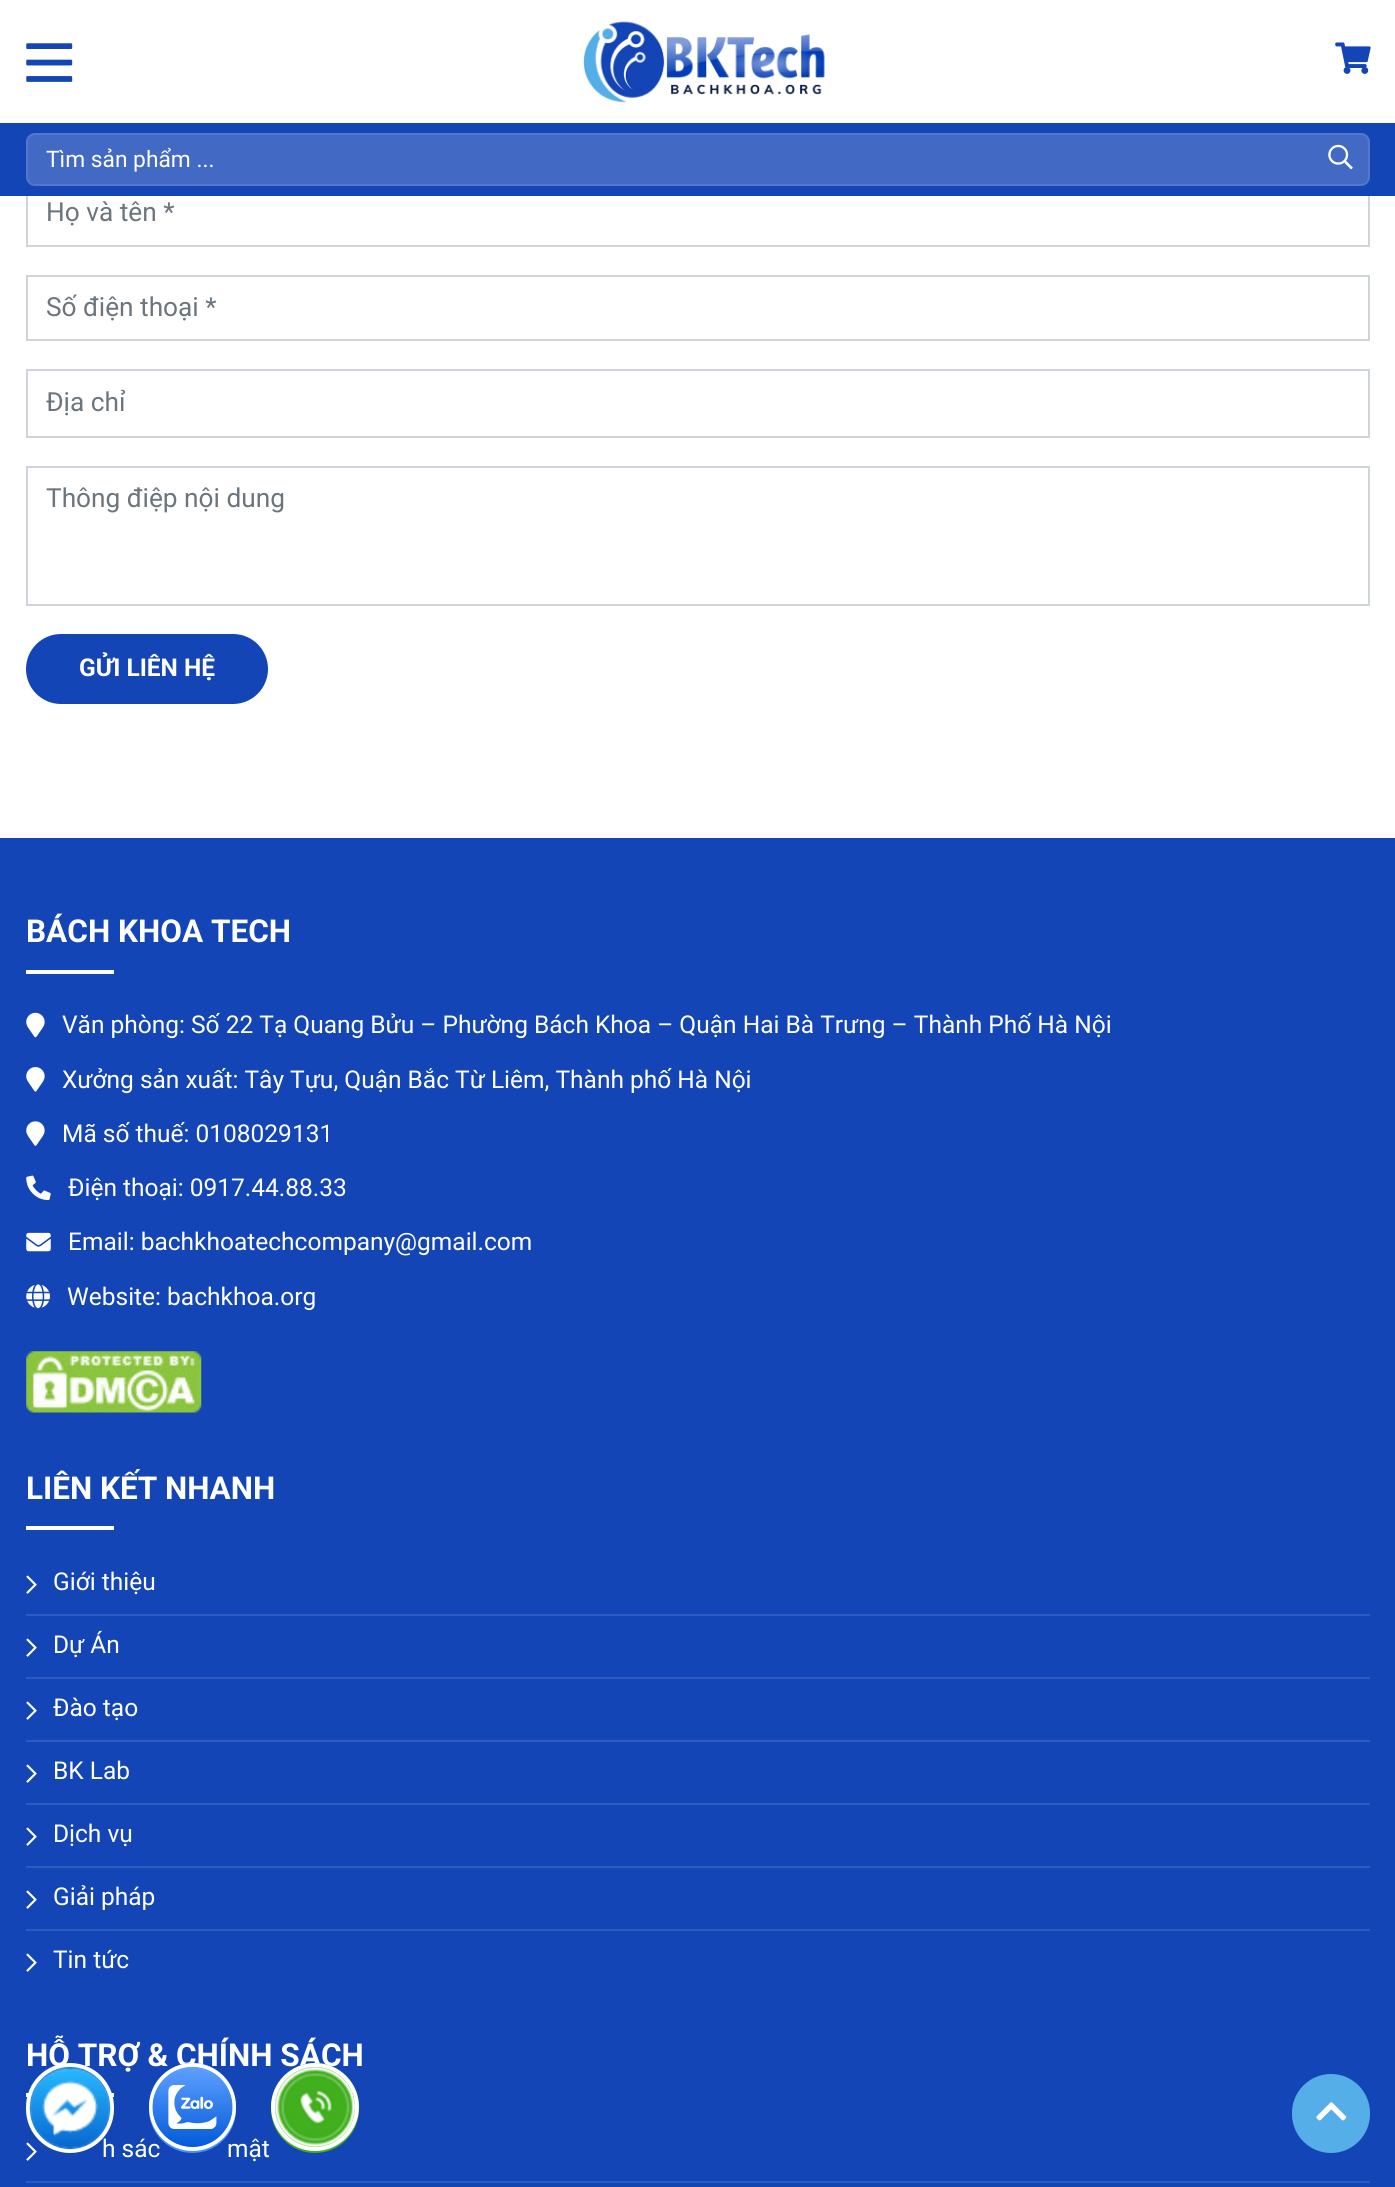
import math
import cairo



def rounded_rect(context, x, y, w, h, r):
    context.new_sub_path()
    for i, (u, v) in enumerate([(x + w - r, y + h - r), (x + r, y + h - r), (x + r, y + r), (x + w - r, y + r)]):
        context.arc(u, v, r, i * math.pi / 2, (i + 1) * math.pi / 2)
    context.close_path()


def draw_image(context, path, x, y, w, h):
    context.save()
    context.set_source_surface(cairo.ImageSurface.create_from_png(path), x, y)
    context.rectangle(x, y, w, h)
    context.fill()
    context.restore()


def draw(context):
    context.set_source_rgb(1, 1, 1)
    context.paint()
    draw_image(context, "images/1.png", 26, 43, 47, 39)
    draw_image(context, "images/2.png", 583, 21, 242, 82)
    draw_image(context, "images/3.png", 1335, 42, 36, 32)
    context.rectangle(27, 180, 1342, 66)
    context.set_source_rgb(206 / 255, 212 / 255, 218 / 255)
    context.stroke()
    context.set_source_rgb(19 / 255, 69 / 255, 182 / 255)
    context.rectangle(0, 123, 1395, 73)
    context.fill()
    context.set_source_rgb(66 / 255, 106 / 255, 197 / 255)
    rounded_rect(context, 26, 133, 1344, 53, 9)
    context.fill()
    rounded_rect(context, 27, 134, 1342, 51, 8)
    context.set_source_rgba(1, 1, 1, 0.09)
    context.stroke()
    draw_image(context, "images/4.png", 1328, 144, 25, 26)
    context.rectangle(27, 276, 1342, 64)
    context.set_source_rgb(206 / 255, 212 / 255, 218 / 255)
    context.stroke()
    context.rectangle(27, 370, 1342, 67)
    context.stroke()
    context.rectangle(27, 467, 1342, 138)
    context.stroke()
    context.set_source_rgb(19 / 255, 69 / 255, 182 / 255)
    rounded_rect(context, 26, 634, 242, 70, 35)
    context.fill()
    context.rectangle(0, 838, 1395, 1349)
    context.fill()
    context.set_source_rgb(1, 1, 1)
    context.rectangle(26, 970, 88, 4)
    context.fill()
    draw_image(context, "images/5.png", 26, 1012, 19, 26)
    draw_image(context, "images/6.png", 26, 1067, 19, 25)
    draw_image(context, "images/7.png", 26, 1121, 19, 25)
    draw_image(context, "images/8.png", 26, 1175, 25, 26)
    draw_image(context, "images/9.png", 26, 1232, 25, 20)
    draw_image(context, "images/10.png", 26, 1284, 24, 25)
    draw_image(context, "images/11.png", 26, 1351, 176, 62)
    context.rectangle(26, 1526, 88, 4)
    context.fill()
    context.set_source_rgb(47 / 255, 91 / 255, 191 / 255)
    context.rectangle(26, 1614, 1344, 2)
    context.fill()
    draw_image(context, "images/12.png", 26, 1575, 11, 19)
    context.rectangle(26, 1677, 1344, 2)
    context.fill()
    draw_image(context, "images/12.png", 26, 1638, 11, 19)
    context.rectangle(26, 1740, 1344, 2)
    context.fill()
    draw_image(context, "images/12.png", 26, 1701, 11, 19)
    context.rectangle(26, 1803, 1344, 2)
    context.fill()
    draw_image(context, "images/12.png", 26, 1764, 11, 19)
    context.rectangle(26, 1866, 1344, 2)
    context.fill()
    draw_image(context, "images/12.png", 26, 1827, 11, 19)
    context.rectangle(26, 1929, 1344, 2)
    context.fill()
    draw_image(context, "images/12.png", 26, 1890, 11, 19)
    draw_image(context, "images/12.png", 26, 1953, 11, 19)
    context.set_source_rgb(1, 1, 1)
    context.rectangle(26, 2093, 88, 4)
    context.fill()
    context.set_source_rgb(47 / 255, 91 / 255, 191 / 255)
    context.rectangle(26, 2181, 1344, 2)
    context.fill()
    draw_image(context, "images/12.png", 26, 2142, 11, 19)
    context.set_source_rgb(85 / 255, 174 / 255, 232 / 255)
    rounded_rect(context, 1292, 2074, 78, 79, 39)
    context.fill()
    draw_image(context, "images/16.png", 1316, 2102, 31, 19)
    context.select_font_face("Roboto")
    context.set_font_size(22.75)
    context.set_source_rgb(1, 1, 1)
    context.move_to(46, 167)
    context.show_text("Tìm sản phẩm ...")
    context.set_font_size(26.25)
    context.set_source_rgb(108 / 255, 117 / 255, 125 / 255)
    context.move_to(46, 221)
    context.show_text("Họ và tên *")
    context.move_to(46, 316)
    context.show_text("Số điện thoại *")
    context.move_to(46, 411)
    context.show_text("Địa chỉ")
    context.move_to(46, 507)
    context.show_text("Thông điệp nội dung")
    context.select_font_face("Roboto", cairo.FontSlant.NORMAL, cairo.FontWeight.BOLD)
    context.set_font_size(24.5)
    context.set_source_rgb(1, 1, 1)
    context.move_to(79, 676)
    context.show_text("GỬI LIÊN HỆ")
    context.set_font_size(31.5)
    context.move_to(26, 942)
    context.show_text("BÁCH KHOA TECH")
    context.select_font_face("Roboto")
    context.set_font_size(24.5)
    context.move_to(62, 1033)
    context.show_text("Văn phòng: Số 22 Tạ Quang Bửu – Phường Bách Khoa – Quận Hai Bà Trưng – Thành Phố Hà Nội")
    context.move_to(62, 1088)
    context.show_text("Xưởng sản xuất: Tây Tựu, Quận Bắc Từ Liêm, Thành phố Hà Nội")
    context.move_to(62, 1142)
    context.show_text("Mã số thuế: 0108029131")
    context.move_to(68, 1196)
    context.show_text("Điện thoại: 0917.44.88.33")
    context.move_to(68, 1250)
    context.show_text("Email: bachkhoatechcompany@gmail.com")
    context.move_to(67, 1305)
    context.show_text("Website: bachkhoa.org")
    context.select_font_face("Roboto", cairo.FontSlant.NORMAL, cairo.FontWeight.BOLD)
    context.set_font_size(31.5)
    context.move_to(26, 1499)
    context.show_text("LIÊN KẾT NHANH")
    context.select_font_face("Roboto")
    context.set_font_size(24.5)
    context.move_to(53, 1590)
    context.show_text("Giới thiệu")
    context.move_to(53, 1653)
    context.show_text("Dự Án")
    context.move_to(53, 1716)
    context.show_text("Đào tạo")
    context.move_to(53, 1779)
    context.show_text("BK Lab")
    context.move_to(53, 1842)
    context.show_text("Dịch vụ")
    context.move_to(53, 1905)
    context.show_text("Giải pháp")
    context.move_to(53, 1968)
    context.show_text("Tin tức")
    context.select_font_face("Roboto", cairo.FontSlant.NORMAL, cairo.FontWeight.BOLD)
    context.set_font_size(31.5)
    context.move_to(26, 2066)
    context.show_text("HỖ TRỢ & CHÍNH SÁCH")
    context.select_font_face("Roboto")
    context.set_font_size(24.5)
    context.move_to(102, 2157)
    context.show_text("h sác")
    context.move_to(227, 2157)
    context.show_text("mật")
    context.set_source_rgb(13 / 255, 117 / 255, 215 / 255)
    rounded_rect(context, 28, 2065, 84, 86, 42)
    context.fill_preserve()
    context.set_source_rgb(1, 1, 1)
    context.set_line_width(4)
    context.stroke()
    draw_image(context, "images/13.png", 29, 2067, 82, 83)
    context.set_source_rgb(67 / 255, 143 / 255, 1)
    rounded_rect(context, 149, 2063, 87, 90, 43.5)
    context.fill()
    rounded_rect(context, 151, 2065, 83, 84, 41.5)
    context.set_source_rgb(1, 1, 1)
    context.stroke()
    draw_image(context, "images/14.png", 152, 2067, 81, 80)
    context.set_source_rgb(65 / 255, 175 / 255, 30 / 255)
    rounded_rect(context, 271, 2063, 88, 90, 44)
    context.fill()
    context.arc(315, 2107, 42, 0, 2 * math.pi)
    context.set_source_rgb(1, 1, 1)
    context.stroke()
    draw_image(context, "images/15.png", 275, 2067, 80, 80)


surface = cairo.ImageSurface(cairo.Format.RGB24, 1395, 2187)
context = cairo.Context(surface)
options = cairo.FontOptions()
options.set_hint_metrics(cairo.HintMetrics.OFF)
options.set_hint_style(cairo.HintStyle.NONE)
context.set_font_options(options)
context.set_miter_limit(4)
draw(context)
surface.write_to_png("out.png")
